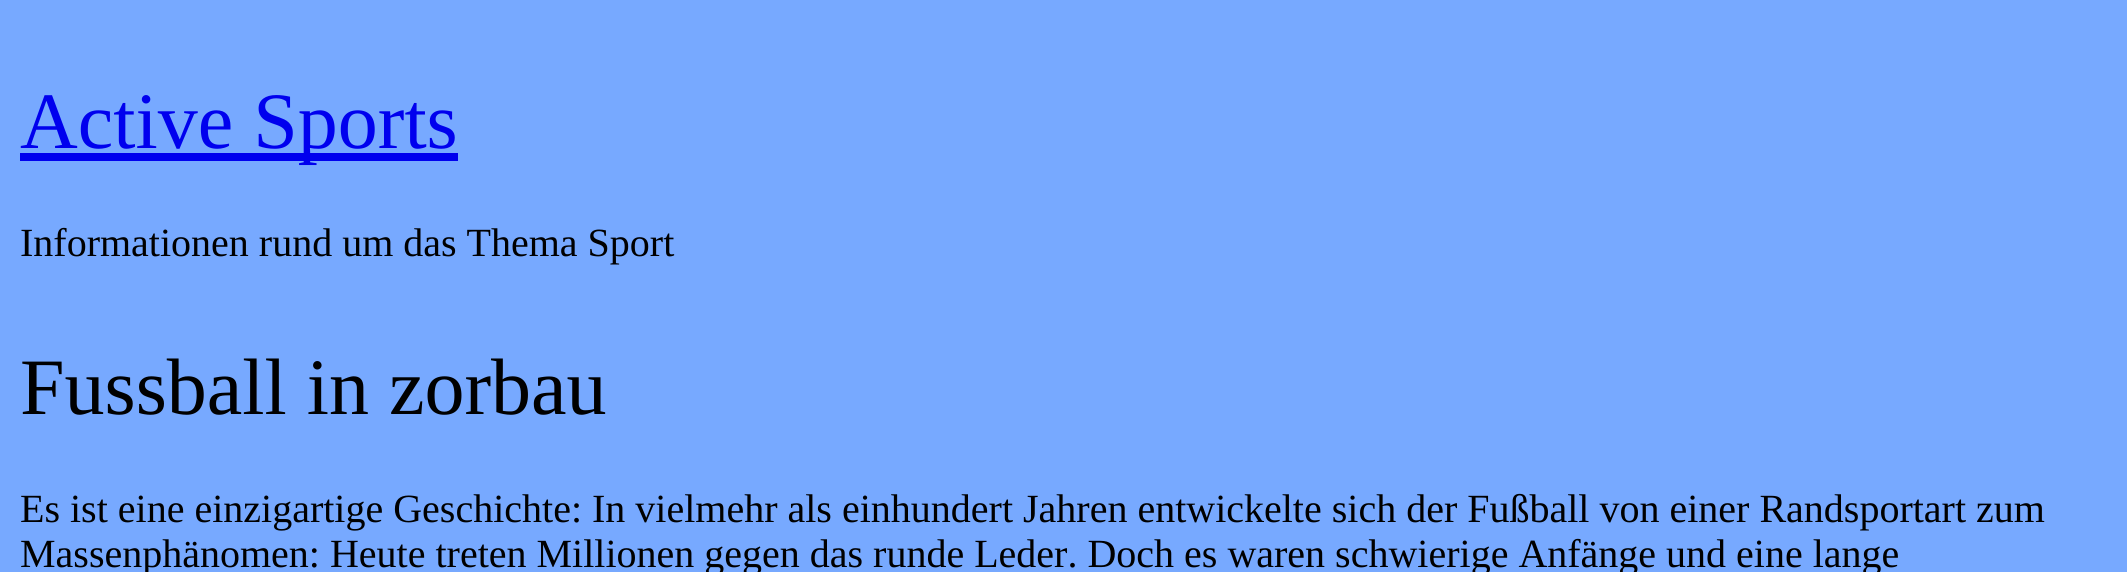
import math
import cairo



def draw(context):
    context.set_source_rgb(119 / 255, 169 / 255, 1)
    context.paint()
    context.set_source_rgb(0, 0, 238 / 255)
    context.rectangle(20, 153, 438, 8)
    context.fill()
    context.select_font_face("Liberation Serif")
    context.set_font_size(80)
    context.move_to(20, 148)
    context.show_text("Active Sports")
    context.set_font_size(40)
    context.set_source_rgb(0, 0, 0)
    context.move_to(20, 256)
    context.show_text("Informationen rund um das Thema Sport")
    context.set_font_size(80)
    context.move_to(20, 414)
    context.show_text("Fussball in zorbau")
    context.set_font_size(40)
    context.move_to(20, 522)
    context.show_text("Es ist eine einzigartige Geschichte: In vielmehr als einhundert Jahren entwickelte sich der Fußball von einer Randsportart zum")
    context.move_to(20, 567)
    context.show_text("Massenphänomen: Heute treten Millionen gegen das runde Leder. Doch es waren schwierige Anfänge und eine lange")


surface = cairo.ImageSurface(cairo.Format.RGB24, 2127, 572)
context = cairo.Context(surface)
options = cairo.FontOptions()
options.set_hint_metrics(cairo.HintMetrics.OFF)
options.set_hint_style(cairo.HintStyle.NONE)
context.set_font_options(options)
context.set_miter_limit(4)
draw(context)
surface.write_to_png("out.png")
